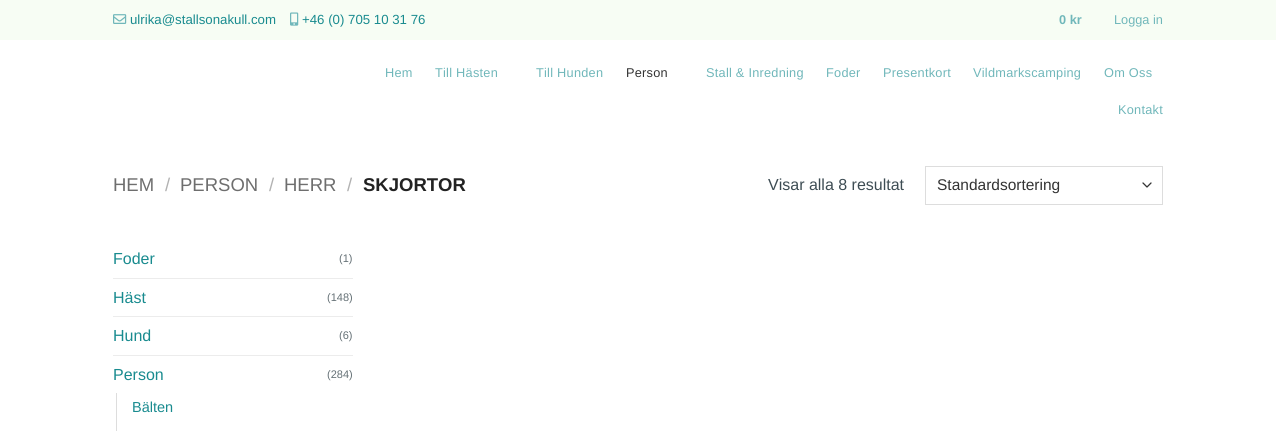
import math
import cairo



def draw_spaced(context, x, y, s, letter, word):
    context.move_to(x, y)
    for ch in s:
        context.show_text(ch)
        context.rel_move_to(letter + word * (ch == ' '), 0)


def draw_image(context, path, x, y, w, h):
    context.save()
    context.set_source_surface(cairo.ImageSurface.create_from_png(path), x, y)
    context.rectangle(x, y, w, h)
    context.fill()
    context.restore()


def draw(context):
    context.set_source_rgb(1, 1, 1)
    context.paint()
    context.set_source_rgb(247 / 255, 253 / 255, 244 / 255)
    context.rectangle(0, 0, 1276, 40)
    context.fill()
    draw_image(context, "images/1.png", 113, 14, 14, 10)
    draw_image(context, "images/2.png", 290, 12, 9, 14)
    context.new_path()
    context.move_to(1143, 183)
    context.line_to(1147, 187)
    context.line_to(1151, 183)
    context.set_source_rgb(51 / 255, 51 / 255, 51 / 255)
    context.set_line_width(1.3)
    context.set_line_cap(cairo.LineCap.ROUND)
    context.set_line_join(cairo.LineJoin.ROUND)
    context.stroke()
    context.rectangle(925.5, 166.5, 237, 38)
    context.set_source_rgb(221 / 255, 221 / 255, 221 / 255)
    context.set_line_width(1)
    context.set_line_cap(cairo.LineCap.BUTT)
    context.set_line_join(cairo.LineJoin.MITER)
    context.stroke()
    context.set_source_rgb(236 / 255, 236 / 255, 236 / 255)
    context.rectangle(113, 278, 240, 1)
    context.fill()
    context.rectangle(113, 316, 240, 1)
    context.fill()
    context.rectangle(113, 355, 240, 1)
    context.fill()
    context.set_source_rgb(221 / 255, 221 / 255, 221 / 255)
    context.rectangle(116, 393, 1, 38)
    context.fill()
    context.select_font_face("Liberation Sans")
    context.set_font_size(13.25)
    context.set_source_rgb(25 / 255, 139 / 255, 143 / 255)
    context.move_to(130, 24)
    context.show_text("ulrika@stallsonakull.com")
    context.move_to(302, 24)
    context.show_text("+46 (0) 705 10 31 76")
    context.select_font_face("Liberation Sans", cairo.FontSlant.NORMAL, cairo.FontWeight.BOLD)
    context.set_font_size(12.75)
    context.set_source_rgb(112 / 255, 183 / 255, 186 / 255)
    context.move_to(1059, 24)
    context.show_text("0 kr")
    context.select_font_face("Liberation Sans")
    context.move_to(1114, 24)
    context.show_text("Logga in")
    draw_spaced(context, 385, 77, "Hem", 0.25, 0)
    draw_spaced(context, 435, 77, "Till Hästen", 0.25, 0)
    draw_spaced(context, 536, 77, "Till Hunden", 0.25, 0)
    context.set_source_rgb(51 / 255, 51 / 255, 51 / 255)
    draw_spaced(context, 626, 77, "Person", 0.25, 0)
    context.set_source_rgb(112 / 255, 183 / 255, 186 / 255)
    draw_spaced(context, 706, 77, "Stall & Inredning", 0.25, 0)
    draw_spaced(context, 826, 77, "Foder", 0.25, 0)
    draw_spaced(context, 883, 77, "Presentkort", 0.25, 0)
    draw_spaced(context, 973, 77, "Vildmarkscamping", 0.25, 0)
    draw_spaced(context, 1104, 77, "Om Oss", 0.25, 0)
    draw_spaced(context, 1118, 114, "Kontakt", 0.25, 0)
    context.set_font_size(18.5)
    context.set_source_rgb(110 / 255, 110 / 255, 110 / 255)
    context.move_to(113, 191)
    context.show_text("HEM")
    context.set_source_rgb(178 / 255, 178 / 255, 178 / 255)
    context.move_to(165, 191)
    context.show_text("/")
    context.set_source_rgb(110 / 255, 110 / 255, 110 / 255)
    context.move_to(180, 191)
    context.show_text("PERSON")
    context.set_source_rgb(178 / 255, 178 / 255, 178 / 255)
    context.move_to(269, 191)
    context.show_text("/")
    context.set_source_rgb(110 / 255, 110 / 255, 110 / 255)
    context.move_to(284, 191)
    context.show_text("HERR")
    context.set_source_rgb(178 / 255, 178 / 255, 178 / 255)
    context.move_to(347, 191)
    context.show_text("/")
    context.select_font_face("Liberation Sans", cairo.FontSlant.NORMAL, cairo.FontWeight.BOLD)
    context.set_source_rgb(34 / 255, 34 / 255, 34 / 255)
    context.move_to(363, 191)
    context.show_text("SKJORTOR")
    context.select_font_face("Liberation Sans")
    context.set_font_size(16)
    context.set_source_rgb(61 / 255, 76 / 255, 83 / 255)
    context.move_to(768, 190)
    context.show_text("Visar alla 8 resultat")
    context.set_font_size(15.5)
    context.set_source_rgb(51 / 255, 51 / 255, 51 / 255)
    context.move_to(937, 190)
    context.show_text("Standardsortering")
    context.set_font_size(16)
    context.set_source_rgb(25 / 255, 139 / 255, 143 / 255)
    context.move_to(113, 264)
    context.show_text("Foder")
    context.set_font_size(11)
    context.set_source_rgb(100 / 255, 112 / 255, 117 / 255)
    context.move_to(339, 262)
    context.show_text("(1)")
    context.set_font_size(16)
    context.set_source_rgb(25 / 255, 139 / 255, 143 / 255)
    context.move_to(113, 303)
    context.show_text("Häst")
    context.set_font_size(11)
    context.set_source_rgb(100 / 255, 112 / 255, 117 / 255)
    context.move_to(327, 301)
    context.show_text("(148)")
    context.set_font_size(16)
    context.set_source_rgb(25 / 255, 139 / 255, 143 / 255)
    context.move_to(113, 341)
    context.show_text("Hund")
    context.set_font_size(11)
    context.set_source_rgb(100 / 255, 112 / 255, 117 / 255)
    context.move_to(339, 339)
    context.show_text("(6)")
    context.set_font_size(16)
    context.set_source_rgb(25 / 255, 139 / 255, 143 / 255)
    context.move_to(113, 380)
    context.show_text("Person")
    context.set_font_size(11)
    context.set_source_rgb(100 / 255, 112 / 255, 117 / 255)
    context.move_to(327, 378)
    context.show_text("(284)")
    context.set_font_size(14.5)
    context.set_source_rgb(25 / 255, 139 / 255, 143 / 255)
    context.move_to(132, 412)
    context.show_text("Bälten")


surface = cairo.ImageSurface(cairo.Format.RGB24, 1276, 431)
context = cairo.Context(surface)
options = cairo.FontOptions()
options.set_hint_metrics(cairo.HintMetrics.OFF)
options.set_hint_style(cairo.HintStyle.NONE)
context.set_font_options(options)
context.set_miter_limit(4)
draw(context)
surface.write_to_png("out.png")
